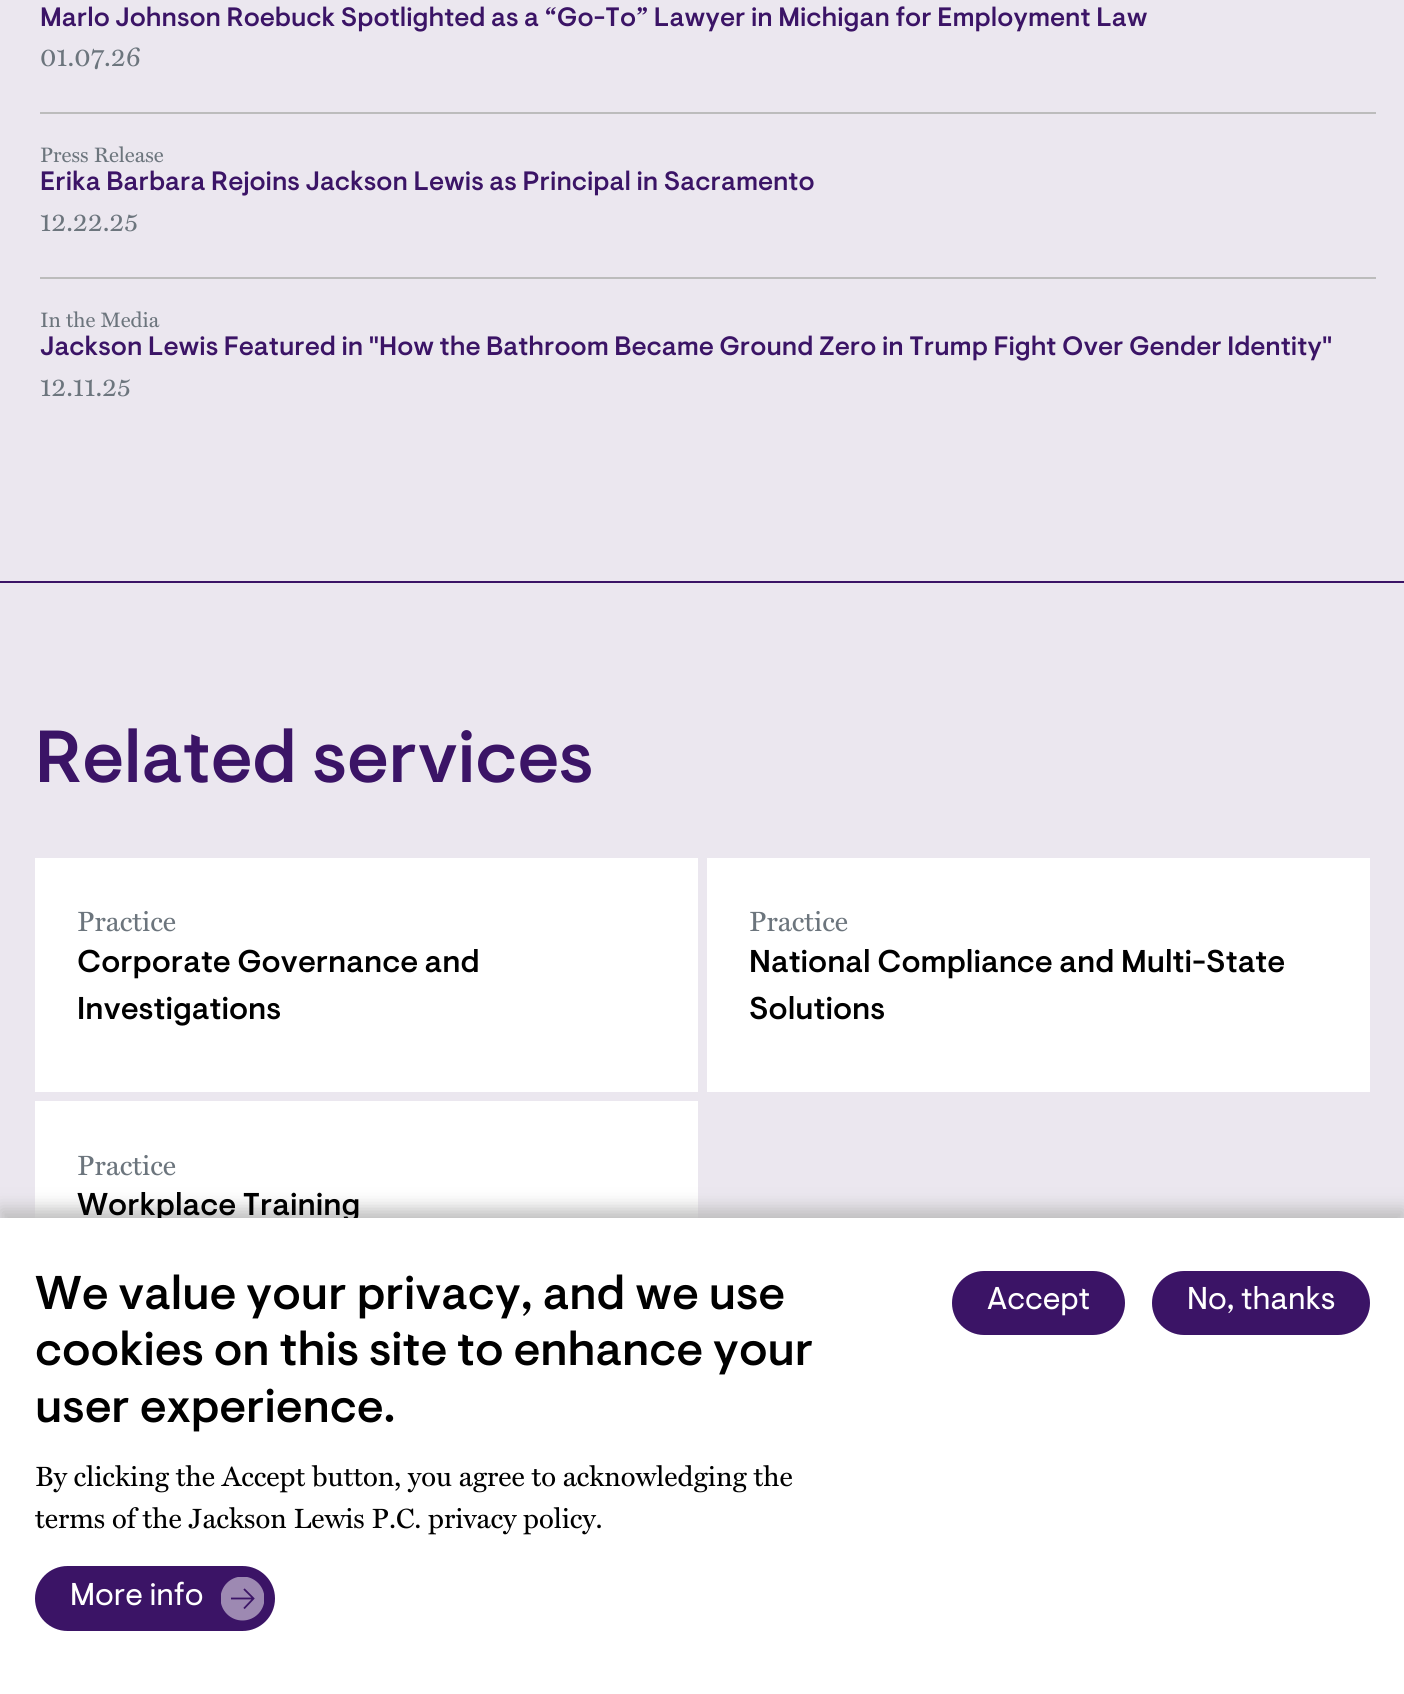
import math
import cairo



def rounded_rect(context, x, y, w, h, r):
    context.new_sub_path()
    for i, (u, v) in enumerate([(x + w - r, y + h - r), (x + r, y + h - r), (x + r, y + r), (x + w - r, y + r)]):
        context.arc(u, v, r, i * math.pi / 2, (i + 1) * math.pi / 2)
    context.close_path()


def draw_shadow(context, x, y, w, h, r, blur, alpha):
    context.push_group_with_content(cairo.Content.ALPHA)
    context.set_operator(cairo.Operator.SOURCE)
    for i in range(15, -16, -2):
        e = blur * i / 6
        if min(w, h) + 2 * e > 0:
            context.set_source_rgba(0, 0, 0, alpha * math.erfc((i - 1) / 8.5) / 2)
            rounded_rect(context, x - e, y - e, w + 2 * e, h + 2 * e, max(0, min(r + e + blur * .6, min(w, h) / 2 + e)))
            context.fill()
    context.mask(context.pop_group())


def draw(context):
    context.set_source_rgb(235 / 255, 231 / 255, 239 / 255)
    context.paint()
    context.set_source_rgb(59 / 255, 20 / 255, 102 / 255)
    context.rectangle(0, 581, 1404, 2)
    context.fill()
    context.set_source_rgb(188 / 255, 188 / 255, 188 / 255)
    context.rectangle(40, 112, 1336, 2)
    context.fill()
    context.rectangle(40, 277, 1336, 2)
    context.fill()
    context.set_source_rgb(1, 1, 1)
    context.rectangle(35, 858, 663, 234)
    context.fill()
    context.rectangle(707, 858, 663, 234)
    context.fill()
    context.rectangle(35, 1101, 663, 117)
    context.fill()
    context.set_source_rgb(188 / 255, 188 / 255, 188 / 255)
    draw_shadow(context, 0, 1209, 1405, 476, 0, 9, 1)
    context.select_font_face("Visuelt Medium")
    context.set_font_size(26.6)
    context.set_source_rgb(59 / 255, 20 / 255, 102 / 255)
    context.move_to(40, 26)
    context.show_text("Marlo Johnson Roebuck Spotlighted as a “Go-To” Lawyer in Michigan for Employment Law")
    context.select_font_face("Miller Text")
    context.set_source_rgb(108 / 255, 117 / 255, 125 / 255)
    context.move_to(40, 66)
    context.show_text("01.07.26")
    context.set_font_size(21)
    context.move_to(40, 162)
    context.show_text("Press Release")
    context.select_font_face("Visuelt Medium")
    context.set_font_size(26.6)
    context.set_source_rgb(59 / 255, 20 / 255, 102 / 255)
    context.move_to(40, 190)
    context.show_text("Erika Barbara Rejoins Jackson Lewis as Principal in Sacramento")
    context.select_font_face("Miller Text")
    context.set_source_rgb(108 / 255, 117 / 255, 125 / 255)
    context.move_to(40, 231)
    context.show_text("12.22.25")
    context.set_font_size(21)
    context.move_to(40, 327)
    context.show_text("In the Media")
    context.select_font_face("Visuelt Medium")
    context.set_font_size(26.6)
    context.set_source_rgb(59 / 255, 20 / 255, 102 / 255)
    context.move_to(40, 355)
    context.show_text("Jackson Lewis Featured in \"How the Bathroom Became Ground Zero in Trump Fight Over Gender Identity\"")
    context.select_font_face("Miller Text")
    context.set_source_rgb(108 / 255, 117 / 255, 125 / 255)
    context.move_to(40, 396)
    context.show_text("12.11.25")
    context.select_font_face("Visuelt Medium")
    context.set_font_size(73.5)
    context.set_source_rgb(59 / 255, 20 / 255, 102 / 255)
    context.move_to(35, 782)
    context.show_text("Related services")
    context.select_font_face("Miller Text")
    context.set_font_size(28)
    context.set_source_rgb(108 / 255, 117 / 255, 125 / 255)
    context.move_to(77, 931)
    context.show_text("Practice")
    context.select_font_face("Visuelt Medium")
    context.set_font_size(31.5)
    context.set_source_rgb(0, 0, 0)
    context.move_to(77, 972)
    context.show_text("Corporate Governance and")
    context.move_to(77, 1019)
    context.show_text("Investigations")
    context.select_font_face("Miller Text")
    context.set_font_size(28)
    context.set_source_rgb(108 / 255, 117 / 255, 125 / 255)
    context.move_to(749, 931)
    context.show_text("Practice")
    context.select_font_face("Visuelt Medium")
    context.set_font_size(31.5)
    context.set_source_rgb(0, 0, 0)
    context.move_to(749, 972)
    context.show_text("National Compliance and Multi-State")
    context.move_to(749, 1019)
    context.show_text("Solutions")
    context.select_font_face("Miller Text")
    context.set_font_size(28)
    context.set_source_rgb(108 / 255, 117 / 255, 125 / 255)
    context.move_to(77, 1175)
    context.show_text("Practice")
    context.select_font_face("Visuelt Medium")
    context.set_font_size(31.5)
    context.set_source_rgb(0, 0, 0)
    context.move_to(77, 1215)
    context.show_text("Workplace Training")
    context.set_source_rgb(1, 1, 1)
    context.rectangle(0, 1218, 1404, 476)
    context.fill()
    context.set_font_size(47.25)
    context.set_source_rgb(0, 0, 0)
    context.move_to(35, 1309)
    context.show_text("We value your privacy, and we use")
    context.move_to(35, 1365)
    context.show_text("cookies on this site to enhance your")
    context.move_to(35, 1422)
    context.show_text("user experience.")
    context.select_font_face("Miller Text")
    context.set_font_size(28)
    context.move_to(35, 1486)
    context.show_text("By clicking the Accept button, you agree to acknowledging the")
    context.move_to(35, 1528)
    context.show_text("terms of the Jackson Lewis P.C. privacy policy.")
    context.set_source_rgb(59 / 255, 20 / 255, 102 / 255)
    rounded_rect(context, 35, 1566, 240, 65, 32.5)
    context.fill()
    context.select_font_face("Visuelt")
    context.set_font_size(31.5)
    context.set_source_rgb(1, 1, 1)
    context.move_to(70, 1605)
    context.show_text("More info")
    context.save()
    context.rectangle(221, 1577, 43, 44)
    context.clip()
    context.set_source_rgb(157 / 255, 137 / 255, 178 / 255)
    context.arc(242.5, 1598.5, 22, 0, 2 * math.pi)
    context.fill()
    context.restore()
    context.new_path()
    context.move_to(244, 1589)
    context.line_to(253.5, 1598.5)
    context.line_to(244, 1608.5)
    context.move_to(231, 1598.5)
    context.line_to(253.5, 1598.5)
    context.set_source_rgb(59 / 255, 20 / 255, 102 / 255)
    context.set_line_width(1.8)
    context.stroke()
    rounded_rect(context, 952, 1271, 173, 64, 32)
    context.fill()
    context.set_source_rgb(1, 1, 1)
    context.move_to(987, 1309)
    context.show_text("Accept")
    context.set_source_rgb(59 / 255, 20 / 255, 102 / 255)
    rounded_rect(context, 1152, 1271, 218, 64, 32)
    context.fill()
    context.set_source_rgb(1, 1, 1)
    context.move_to(1187, 1309)
    context.show_text("No, thanks")


surface = cairo.ImageSurface(cairo.Format.RGB24, 1404, 1694)
context = cairo.Context(surface)
options = cairo.FontOptions()
options.set_hint_metrics(cairo.HintMetrics.OFF)
options.set_hint_style(cairo.HintStyle.NONE)
context.set_font_options(options)
context.set_miter_limit(4)
draw(context)
surface.write_to_png("out.png")
